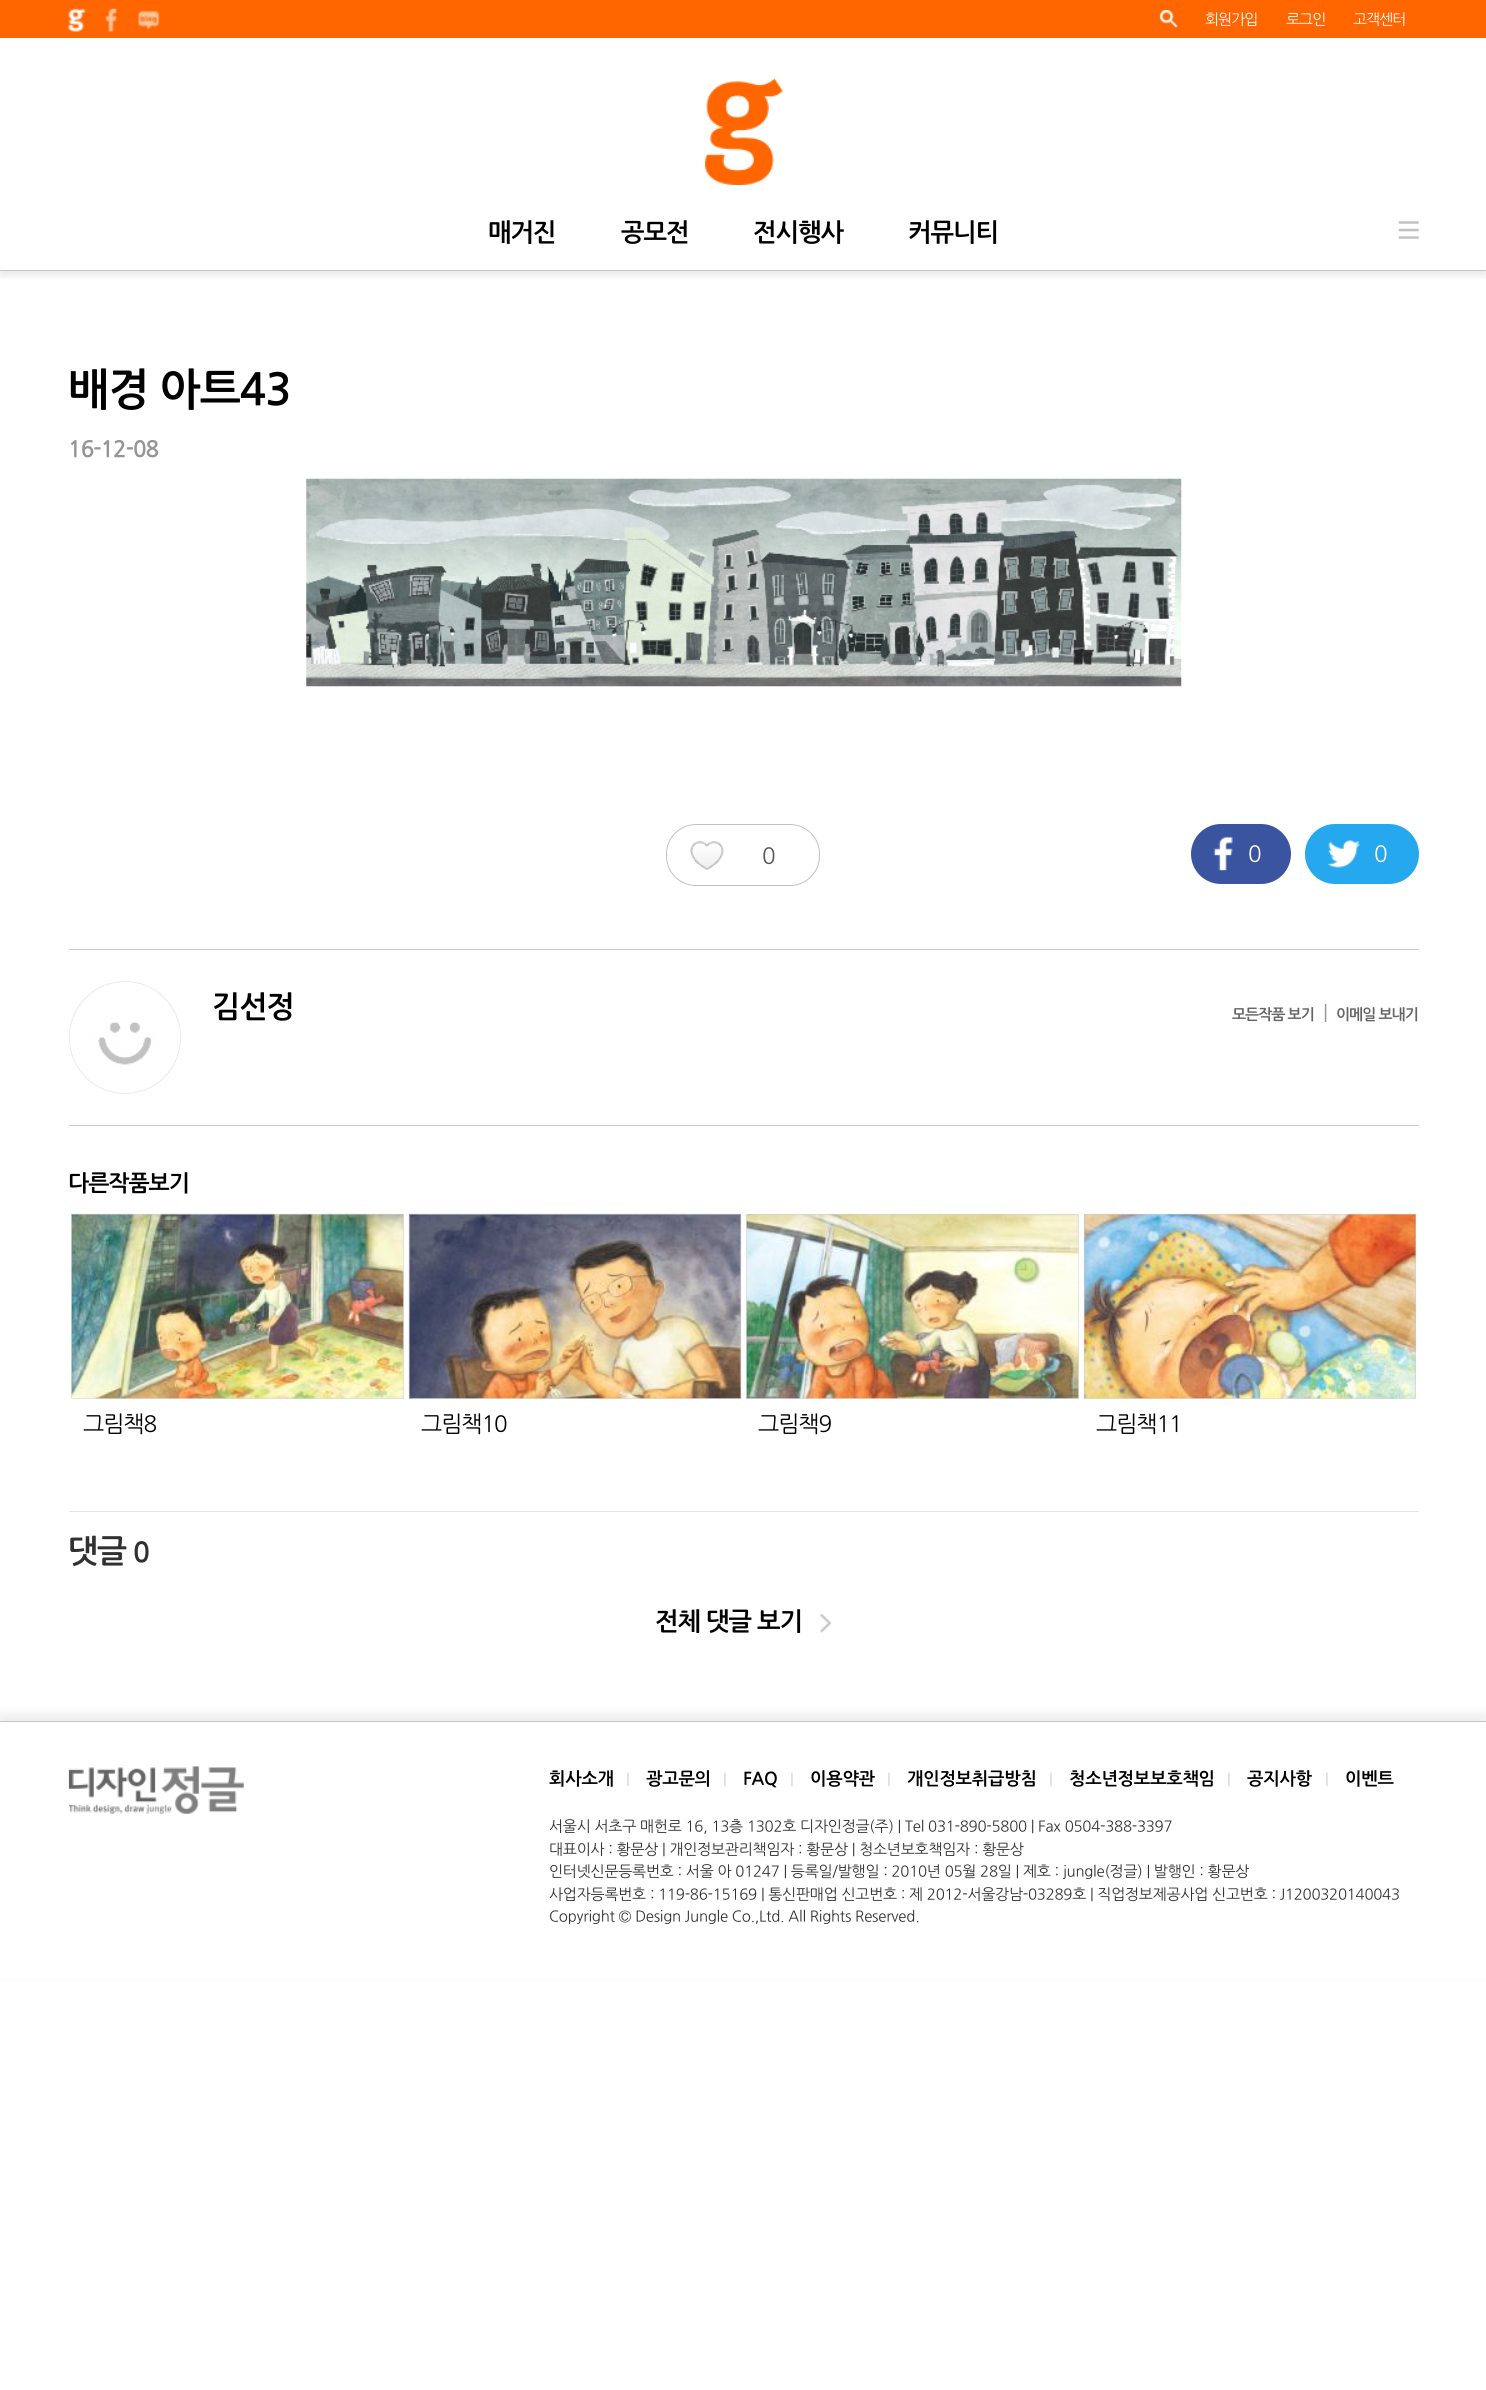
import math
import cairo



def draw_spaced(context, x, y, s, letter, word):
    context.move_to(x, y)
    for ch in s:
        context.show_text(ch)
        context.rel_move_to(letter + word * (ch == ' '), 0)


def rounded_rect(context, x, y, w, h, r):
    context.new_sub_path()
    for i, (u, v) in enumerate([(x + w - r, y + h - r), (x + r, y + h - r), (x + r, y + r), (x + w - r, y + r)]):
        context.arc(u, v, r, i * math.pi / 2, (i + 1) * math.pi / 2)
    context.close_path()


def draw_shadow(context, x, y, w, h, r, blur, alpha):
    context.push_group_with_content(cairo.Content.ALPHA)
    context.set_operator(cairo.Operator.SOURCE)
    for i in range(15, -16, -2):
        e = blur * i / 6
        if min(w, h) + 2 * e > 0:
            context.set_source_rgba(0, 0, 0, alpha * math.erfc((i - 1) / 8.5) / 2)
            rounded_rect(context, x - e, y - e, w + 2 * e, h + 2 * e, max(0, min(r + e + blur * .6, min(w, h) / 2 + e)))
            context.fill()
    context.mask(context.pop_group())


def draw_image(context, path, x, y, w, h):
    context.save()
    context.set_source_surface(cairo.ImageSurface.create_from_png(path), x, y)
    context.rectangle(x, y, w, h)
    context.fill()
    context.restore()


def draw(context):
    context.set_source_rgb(1, 1, 1)
    context.paint()
    context.save()
    context.rectangle(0, 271, 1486, 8)
    context.clip()
    context.set_source_rgb(0, 0, 0)
    draw_shadow(context, 0, 4, 1486, 271, 0, 4.5, 0.1)
    context.restore()
    context.set_source_rgb(198 / 255, 198 / 255, 198 / 255)
    context.rectangle(0, 270, 1486, 1)
    context.fill()
    context.set_source_rgb(1, 102 / 255, 0)
    context.rectangle(0, 0, 1486, 38)
    context.fill()
    draw_image(context, "images/1.png", 68, 8, 18, 24)
    draw_image(context, "images/2.png", 105, 8, 12, 24)
    draw_image(context, "images/3.png", 138, 10, 22, 20)
    draw_image(context, "images/4.png", 1159, 10, 19, 18)
    draw_image(context, "images/5.png", 704, 78, 79, 107)
    draw_image(context, "images/6.png", 1398, 221, 21, 18)
    draw_image(context, "images/7.png", 306, 478, 876, 209)
    draw_image(context, "images/8.png", 690, 841, 34, 29)
    rounded_rect(context, 666.5, 824.5, 153, 61, 29.5)
    context.set_source_rgb(194 / 255, 194 / 255, 194 / 255)
    context.set_line_width(1)
    context.stroke()
    context.set_source_rgb(58 / 255, 84 / 255, 159 / 255)
    rounded_rect(context, 1191, 824, 100, 60, 30)
    context.fill()
    draw_image(context, "images/9.png", 1213, 836, 20, 35)
    context.set_source_rgb(37 / 255, 168 / 255, 238 / 255)
    rounded_rect(context, 1305, 824, 114, 60, 30)
    context.fill()
    draw_image(context, "images/10.png", 1327, 840, 33, 28)
    context.set_source_rgb(204 / 255, 204 / 255, 204 / 255)
    context.rectangle(69, 949, 1350, 1)
    context.fill()
    context.rectangle(69, 1125, 1350, 1)
    context.fill()
    rounded_rect(context, 69.5, 981.5, 111, 112, 55.5)
    context.set_source_rgb(234 / 255, 234 / 255, 234 / 255)
    context.stroke()
    draw_image(context, "images/11.png", 70, 1022, 110, 43)
    draw_image(context, "images/12.png", 71, 1213, 333, 186)
    context.rectangle(71.5, 1214.5, 332, 184)
    context.set_source_rgba(204 / 255, 204 / 255, 204 / 255, 0.5)
    context.stroke()
    draw_image(context, "images/13.png", 408, 1213, 334, 186)
    context.rectangle(409.5, 1214.5, 331, 184)
    context.stroke()
    draw_image(context, "images/14.png", 746, 1213, 333, 186)
    context.rectangle(746.5, 1214.5, 332, 184)
    context.stroke()
    draw_image(context, "images/15.png", 1083, 1213, 334, 186)
    context.rectangle(1084.5, 1214.5, 331, 184)
    context.stroke()
    context.set_source_rgb(229 / 255, 229 / 255, 229 / 255)
    context.rectangle(69, 1511, 1350, 1)
    context.fill()
    draw_image(context, "images/16.png", 820, 1613, 12, 20)
    context.save()
    context.set_fill_rule(cairo.FillRule.EVEN_ODD)
    context.new_path()
    context.move_to(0, 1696)
    context.line_to(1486, 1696)
    context.line_to(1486, 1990)
    context.line_to(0, 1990)
    context.close_path()
    context.move_to(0, 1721)
    context.line_to(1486, 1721)
    context.line_to(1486, 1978)
    context.line_to(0, 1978)
    context.close_path()
    context.clip()
    context.set_source_rgb(234 / 255, 234 / 255, 234 / 255)
    draw_shadow(context, 0, 1715, 1486, 256, 0, 6, 1)
    context.restore()
    context.set_source_rgb(198 / 255, 198 / 255, 198 / 255)
    context.rectangle(0, 1721, 1486, 1)
    context.fill()
    draw_image(context, "images/17.png", 68, 1766, 176, 48)
    context.select_font_face("NanumGothic")
    context.set_font_size(15)
    context.set_source_rgb(1, 1, 1)
    draw_spaced(context, 1205, 24, "회원가입", -1, 0)
    draw_spaced(context, 1286, 24, "로그인", -1, 0)
    draw_spaced(context, 1353, 24, "고객센터", -1, 0)
    context.select_font_face("NanumGothic", cairo.FontSlant.NORMAL, cairo.FontWeight.BOLD)
    context.set_font_size(25)
    context.set_source_rgb(0, 0, 0)
    draw_spaced(context, 488, 240, "매거진", -1, 0)
    draw_spaced(context, 621, 240, "공모전", -1, 0)
    draw_spaced(context, 753, 240, "전시행사", -1, 0)
    draw_spaced(context, 908, 240, "커뮤니티", -1, 0)
    context.set_font_size(43.75)
    draw_spaced(context, 68, 403, "배경 아트43", -1, 0)
    context.set_font_size(22.5)
    context.set_source_rgb(149 / 255, 149 / 255, 149 / 255)
    draw_spaced(context, 68, 456, "16-12-08", -1, 0)
    context.select_font_face("NanumGothic")
    context.set_source_rgb(85 / 255, 85 / 255, 85 / 255)
    draw_spaced(context, 762, 863, "0", -1, 0)
    context.set_source_rgb(1, 1, 1)
    draw_spaced(context, 1248, 861, "0", -1, 0)
    draw_spaced(context, 1374, 861, "0", -1, 0)
    context.select_font_face("NanumGothic", cairo.FontSlant.NORMAL, cairo.FontWeight.BOLD)
    context.set_font_size(30)
    context.set_source_rgb(0, 0, 0)
    draw_spaced(context, 212, 1016, "김선정", -1, 0)
    context.set_font_size(15)
    context.set_source_rgb(102 / 255, 102 / 255, 102 / 255)
    draw_spaced(context, 1232, 1019, "모든작품 보기", -1, 0)
    context.select_font_face("NanumGothic")
    context.set_font_size(20)
    context.set_source_rgb(149 / 255, 149 / 255, 149 / 255)
    draw_spaced(context, 1323, 1019, "|", -1, 0)
    context.select_font_face("NanumGothic", cairo.FontSlant.NORMAL, cairo.FontWeight.BOLD)
    context.set_font_size(15)
    context.set_source_rgb(102 / 255, 102 / 255, 102 / 255)
    draw_spaced(context, 1336, 1019, "이메일 보내기", -1, 0)
    context.set_font_size(22.5)
    context.set_source_rgb(0, 0, 0)
    draw_spaced(context, 68, 1190, "다른작품보기", -1, 0)
    context.select_font_face("NanumGothic")
    draw_spaced(context, 83, 1431, "그림책8", -1, 0)
    draw_spaced(context, 421, 1431, "그림책10", -1, 0)
    draw_spaced(context, 758, 1431, "그림책9", -1, 0)
    draw_spaced(context, 1096, 1431, "그림책11", -1, 0)
    context.select_font_face("NanumGothic", cairo.FontSlant.NORMAL, cairo.FontWeight.BOLD)
    context.set_font_size(32)
    context.set_source_rgb(49 / 255, 49 / 255, 49 / 255)
    draw_spaced(context, 68, 1561, "댓글", -1, 0)
    context.set_font_size(28)
    draw_spaced(context, 133, 1561, "0", -1, 0)
    context.set_font_size(25)
    context.set_source_rgb(0, 0, 0)
    draw_spaced(context, 655, 1629, "전체 댓글 보기", -1, 0)
    context.set_font_size(17.5)
    draw_spaced(context, 549, 1784, "회사소개", -0.25, 0)
    context.select_font_face("NanumGothic")
    context.set_font_size(15)
    context.set_source_rgb(204 / 255, 204 / 255, 204 / 255)
    draw_spaced(context, 626, 1784, "|", -0.25, 0)
    context.select_font_face("NanumGothic", cairo.FontSlant.NORMAL, cairo.FontWeight.BOLD)
    context.set_font_size(17.5)
    context.set_source_rgb(0, 0, 0)
    draw_spaced(context, 646, 1784, "광고문의", -0.25, 0)
    context.select_font_face("NanumGothic")
    context.set_font_size(15)
    context.set_source_rgb(204 / 255, 204 / 255, 204 / 255)
    draw_spaced(context, 723, 1784, "|", -0.25, 0)
    context.select_font_face("NanumGothic", cairo.FontSlant.NORMAL, cairo.FontWeight.BOLD)
    context.set_font_size(17.5)
    context.set_source_rgb(0, 0, 0)
    draw_spaced(context, 743, 1784, "FAQ", -0.25, 0)
    context.select_font_face("NanumGothic")
    context.set_font_size(15)
    context.set_source_rgb(204 / 255, 204 / 255, 204 / 255)
    draw_spaced(context, 790, 1784, "|", -0.25, 0)
    context.select_font_face("NanumGothic", cairo.FontSlant.NORMAL, cairo.FontWeight.BOLD)
    context.set_font_size(17.5)
    context.set_source_rgb(0, 0, 0)
    draw_spaced(context, 810, 1784, "이용약관", -0.25, 0)
    context.select_font_face("NanumGothic")
    context.set_font_size(15)
    context.set_source_rgb(204 / 255, 204 / 255, 204 / 255)
    draw_spaced(context, 887, 1784, "|", -0.25, 0)
    context.select_font_face("NanumGothic", cairo.FontSlant.NORMAL, cairo.FontWeight.BOLD)
    context.set_font_size(17.5)
    context.set_source_rgb(0, 0, 0)
    draw_spaced(context, 907, 1784, "개인정보취급방침", -0.25, 0)
    context.select_font_face("NanumGothic")
    context.set_font_size(15)
    context.set_source_rgb(204 / 255, 204 / 255, 204 / 255)
    draw_spaced(context, 1049, 1784, "|", -0.25, 0)
    context.select_font_face("NanumGothic", cairo.FontSlant.NORMAL, cairo.FontWeight.BOLD)
    context.set_font_size(17.5)
    context.set_source_rgb(0, 0, 0)
    draw_spaced(context, 1069, 1784, "청소년정보보호책임", -0.25, 0)
    context.select_font_face("NanumGothic")
    context.set_font_size(15)
    context.set_source_rgb(204 / 255, 204 / 255, 204 / 255)
    draw_spaced(context, 1227, 1784, "|", -0.25, 0)
    context.select_font_face("NanumGothic", cairo.FontSlant.NORMAL, cairo.FontWeight.BOLD)
    context.set_font_size(17.5)
    context.set_source_rgb(0, 0, 0)
    draw_spaced(context, 1247, 1784, "공지사항", -0.25, 0)
    context.select_font_face("NanumGothic")
    context.set_font_size(15)
    context.set_source_rgb(204 / 255, 204 / 255, 204 / 255)
    draw_spaced(context, 1325, 1784, "|", -0.25, 0)
    context.select_font_face("NanumGothic", cairo.FontSlant.NORMAL, cairo.FontWeight.BOLD)
    context.set_font_size(17.5)
    context.set_source_rgb(0, 0, 0)
    draw_spaced(context, 1345, 1784, "이벤트", -0.25, 0)
    context.select_font_face("NanumGothic")
    context.set_font_size(15)
    context.set_source_rgb(49 / 255, 49 / 255, 49 / 255)
    draw_spaced(context, 549, 1831, "서울시 서초구 매헌로 16, 13층 1302호 디자인정글(주) | Tel 031-890-5800 | Fax 0504-388-3397", -0.25, 0)
    draw_spaced(context, 549, 1854, "대표이사 : 황문상 | 개인정보관리책임자 : 황문상 | 청소년보호책임자 : 황문상", -0.25, 0)
    draw_spaced(context, 549, 1876, "인터넷신문등록번호 : 서울 아 01247 | 등록일/발행일 : 2010년 05월 28일 | 제호 : jungle(정글) | 발행인 : 황문상", -0.25, 0)
    draw_spaced(context, 549, 1899, "사업자등록번호 : 119-86-15169 | 통신판매업 신고번호 : 제 2012-서울강남-03289호 | 직업정보제공사업 신고번호 : J1200320140043", -0.25, 0)
    draw_spaced(context, 549, 1921, "Copyright © Design Jungle Co.,Ltd. All Rights Reserved.", -0.25, 0)


surface = cairo.ImageSurface(cairo.Format.RGB24, 1486, 2390)
context = cairo.Context(surface)
options = cairo.FontOptions()
options.set_hint_metrics(cairo.HintMetrics.OFF)
options.set_hint_style(cairo.HintStyle.NONE)
context.set_font_options(options)
context.set_miter_limit(4)
draw(context)
surface.write_to_png("out.png")
